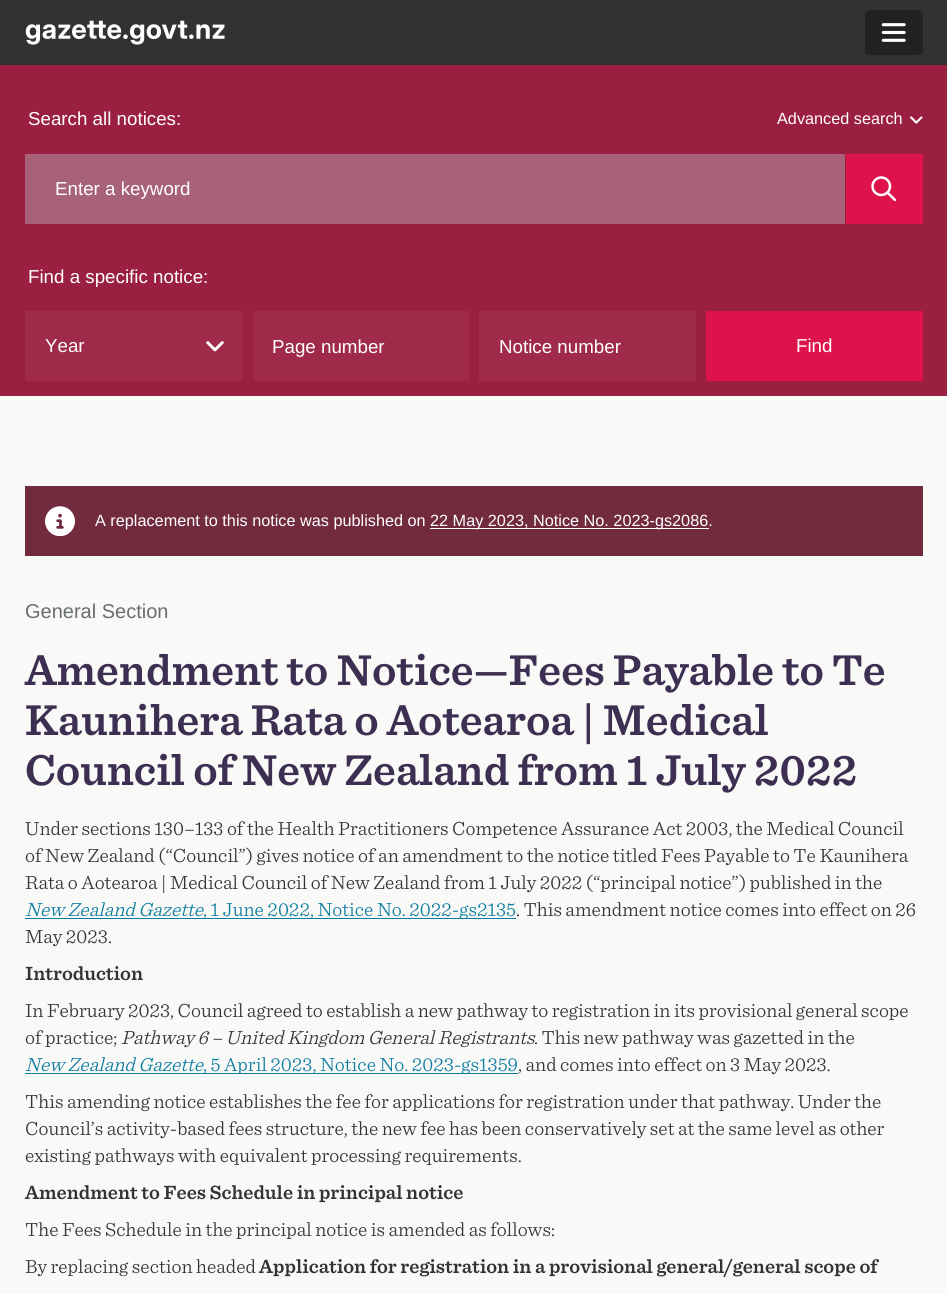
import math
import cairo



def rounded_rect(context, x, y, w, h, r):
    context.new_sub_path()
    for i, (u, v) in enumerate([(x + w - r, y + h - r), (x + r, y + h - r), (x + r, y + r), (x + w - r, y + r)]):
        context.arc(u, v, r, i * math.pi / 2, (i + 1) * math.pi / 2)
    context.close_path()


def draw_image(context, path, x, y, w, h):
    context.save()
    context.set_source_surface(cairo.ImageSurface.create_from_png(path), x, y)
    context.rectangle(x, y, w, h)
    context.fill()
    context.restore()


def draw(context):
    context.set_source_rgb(249 / 255, 249 / 255, 247 / 255)
    context.paint()
    context.set_source_rgb(50 / 255, 50 / 255, 48 / 255)
    context.rectangle(0, 0, 947, 65)
    context.fill()
    draw_image(context, "images/1.png", 25, 20, 200, 25)
    context.set_source_rgb(34 / 255, 34 / 255, 34 / 255)
    rounded_rect(context, 865.5, 10.5, 57, 44, 4.5)
    context.fill_preserve()
    context.set_line_width(1)
    context.stroke()
    draw_image(context, "images/2.png", 881, 23, 25, 19)
    context.set_source_rgb(155 / 255, 31 / 255, 65 / 255)
    context.rectangle(0, 65, 947, 331)
    context.fill()
    draw_image(context, "images/3.png", 910, 116, 13, 8)
    context.set_source_rgb(167 / 255, 97 / 255, 120 / 255)
    context.rectangle(25, 154, 820, 70)
    context.fill()
    context.set_source_rgb(222 / 255, 19 / 255, 75 / 255)
    context.rectangle(846, 154, 77, 70)
    context.fill()
    draw_image(context, "images/4.png", 871, 176, 25, 25)
    context.set_source_rgb(160 / 255, 42 / 255, 74 / 255)
    context.rectangle(25, 311, 218, 70)
    context.fill()
    draw_image(context, "images/5.png", 206, 341, 18, 11)
    context.rectangle(253, 311, 216, 70)
    context.fill()
    context.rectangle(479, 311, 217, 70)
    context.fill()
    context.set_source_rgb(222 / 255, 19 / 255, 75 / 255)
    context.rectangle(706, 311, 217, 70)
    context.fill()
    context.set_source_rgb(114 / 255, 42 / 255, 63 / 255)
    context.rectangle(25, 486, 898, 70)
    context.fill()
    draw_image(context, "images/6.png", 45, 506, 30, 30)
    context.set_source_rgb(1, 1, 1)
    context.rectangle(430, 528, 279, 1)
    context.fill()
    context.set_source_rgb(11 / 255, 124 / 255, 161 / 255)
    context.rectangle(25, 918, 491, 1)
    context.fill()
    context.rectangle(25, 1073, 493, 1)
    context.fill()
    context.select_font_face("Liberation Sans")
    context.set_font_size(18.75)
    context.set_source_rgb(1, 1, 1)
    context.move_to(28, 125)
    context.show_text("Search all notices:")
    context.set_font_size(16.25)
    context.move_to(777, 124)
    context.show_text("Advanced search")
    context.set_font_size(18.75)
    context.move_to(55, 195)
    context.show_text("Enter a keyword")
    context.move_to(28, 283)
    context.show_text("Find a specific notice:")
    context.move_to(45, 352)
    context.show_text("Year")
    context.move_to(272, 353)
    context.show_text("Page number")
    context.move_to(499, 353)
    context.show_text("Notice number")
    context.move_to(796, 352)
    context.show_text("Find")
    context.set_font_size(16.25)
    context.move_to(95, 526)
    context.show_text("A replacement to this notice was published on")
    context.move_to(430, 526)
    context.show_text("22 May 2023, Notice No. 2023-gs2086.")
    context.set_font_size(20)
    context.set_source_rgb(105 / 255, 111 / 255, 110 / 255)
    context.move_to(25, 618)
    context.show_text("General Section")
    context.select_font_face("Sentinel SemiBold")
    context.set_font_size(45)
    context.set_source_rgb(61 / 255, 47 / 255, 81 / 255)
    context.move_to(25, 685)
    context.show_text("Amendment to Notice—Fees Payable to Te")
    context.move_to(25, 735)
    context.show_text("Kaunihera Rata o Aotearoa | Medical")
    context.move_to(25, 785)
    context.show_text("Council of New Zealand from 1 July 2022")
    context.select_font_face("Sentinel Light")
    context.set_font_size(20)
    context.set_source_rgb(51 / 255, 51 / 255, 51 / 255)
    context.move_to(25, 835)
    context.show_text("Under sections 130–133 of the Health Practitioners Competence Assurance Act 2003, the Medical Council")
    context.move_to(25, 862)
    context.show_text("of New Zealand (“Council”) gives notice of an amendment to the notice titled Fees Payable to Te Kaunihera")
    context.move_to(25, 889)
    context.show_text("Rata o Aotearoa | Medical Council of New Zealand from 1 July 2022 (“principal notice”) published in the")
    context.select_font_face("Sentinel Light", cairo.FontSlant.ITALIC)
    context.set_source_rgb(11 / 255, 124 / 255, 161 / 255)
    context.move_to(25, 916)
    context.show_text("New Zealand Gazette")
    context.select_font_face("Sentinel Light")
    context.move_to(203, 916)
    context.show_text(", 1 June 2022, Notice No. 2022-gs2135")
    context.set_source_rgb(51 / 255, 51 / 255, 51 / 255)
    context.move_to(516, 916)
    context.show_text(". This amendment notice comes into effect on 26")
    context.move_to(25, 943)
    context.show_text("May 2023.")
    context.select_font_face("Sentinel SemiBold")
    context.move_to(25, 980)
    context.show_text("Introduction")
    context.select_font_face("Sentinel Light")
    context.move_to(25, 1017)
    context.show_text("In February 2023, Council agreed to establish a new pathway to registration in its provisional general scope")
    context.move_to(25, 1044)
    context.show_text("of practice;")
    context.select_font_face("Sentinel Light", cairo.FontSlant.ITALIC)
    context.move_to(121, 1044)
    context.show_text("Pathway 6 – United Kingdom General Registrants")
    context.select_font_face("Sentinel Light")
    context.move_to(534, 1044)
    context.show_text(". This new pathway was gazetted in the")
    context.select_font_face("Sentinel Light", cairo.FontSlant.ITALIC)
    context.set_source_rgb(11 / 255, 124 / 255, 161 / 255)
    context.move_to(25, 1071)
    context.show_text("New Zealand Gazette")
    context.select_font_face("Sentinel Light")
    context.move_to(203, 1071)
    context.show_text(", 5 April 2023, Notice No. 2023-gs1359")
    context.set_source_rgb(51 / 255, 51 / 255, 51 / 255)
    context.move_to(518, 1071)
    context.show_text(", and comes into effect on 3 May 2023.")
    context.move_to(25, 1108)
    context.show_text("This amending notice establishes the fee for applications for registration under that pathway. Under the")
    context.move_to(25, 1135)
    context.show_text("Council’s activity-based fees structure, the new fee has been conservatively set at the same level as other")
    context.move_to(25, 1162)
    context.show_text("existing pathways with equivalent processing requirements.")
    context.select_font_face("Sentinel SemiBold")
    context.move_to(25, 1199)
    context.show_text("Amendment to Fees Schedule in principal notice")
    context.select_font_face("Sentinel Light")
    context.move_to(25, 1236)
    context.show_text("The Fees Schedule in the principal notice is amended as follows:")
    context.move_to(25, 1273)
    context.show_text("By replacing section headed")
    context.select_font_face("Sentinel SemiBold")
    context.move_to(259, 1273)
    context.show_text("Application for registration in a provisional general/general scope of")


surface = cairo.ImageSurface(cairo.Format.RGB24, 947, 1294)
context = cairo.Context(surface)
options = cairo.FontOptions()
options.set_hint_metrics(cairo.HintMetrics.OFF)
options.set_hint_style(cairo.HintStyle.NONE)
context.set_font_options(options)
context.set_miter_limit(4)
draw(context)
surface.write_to_png("out.png")
